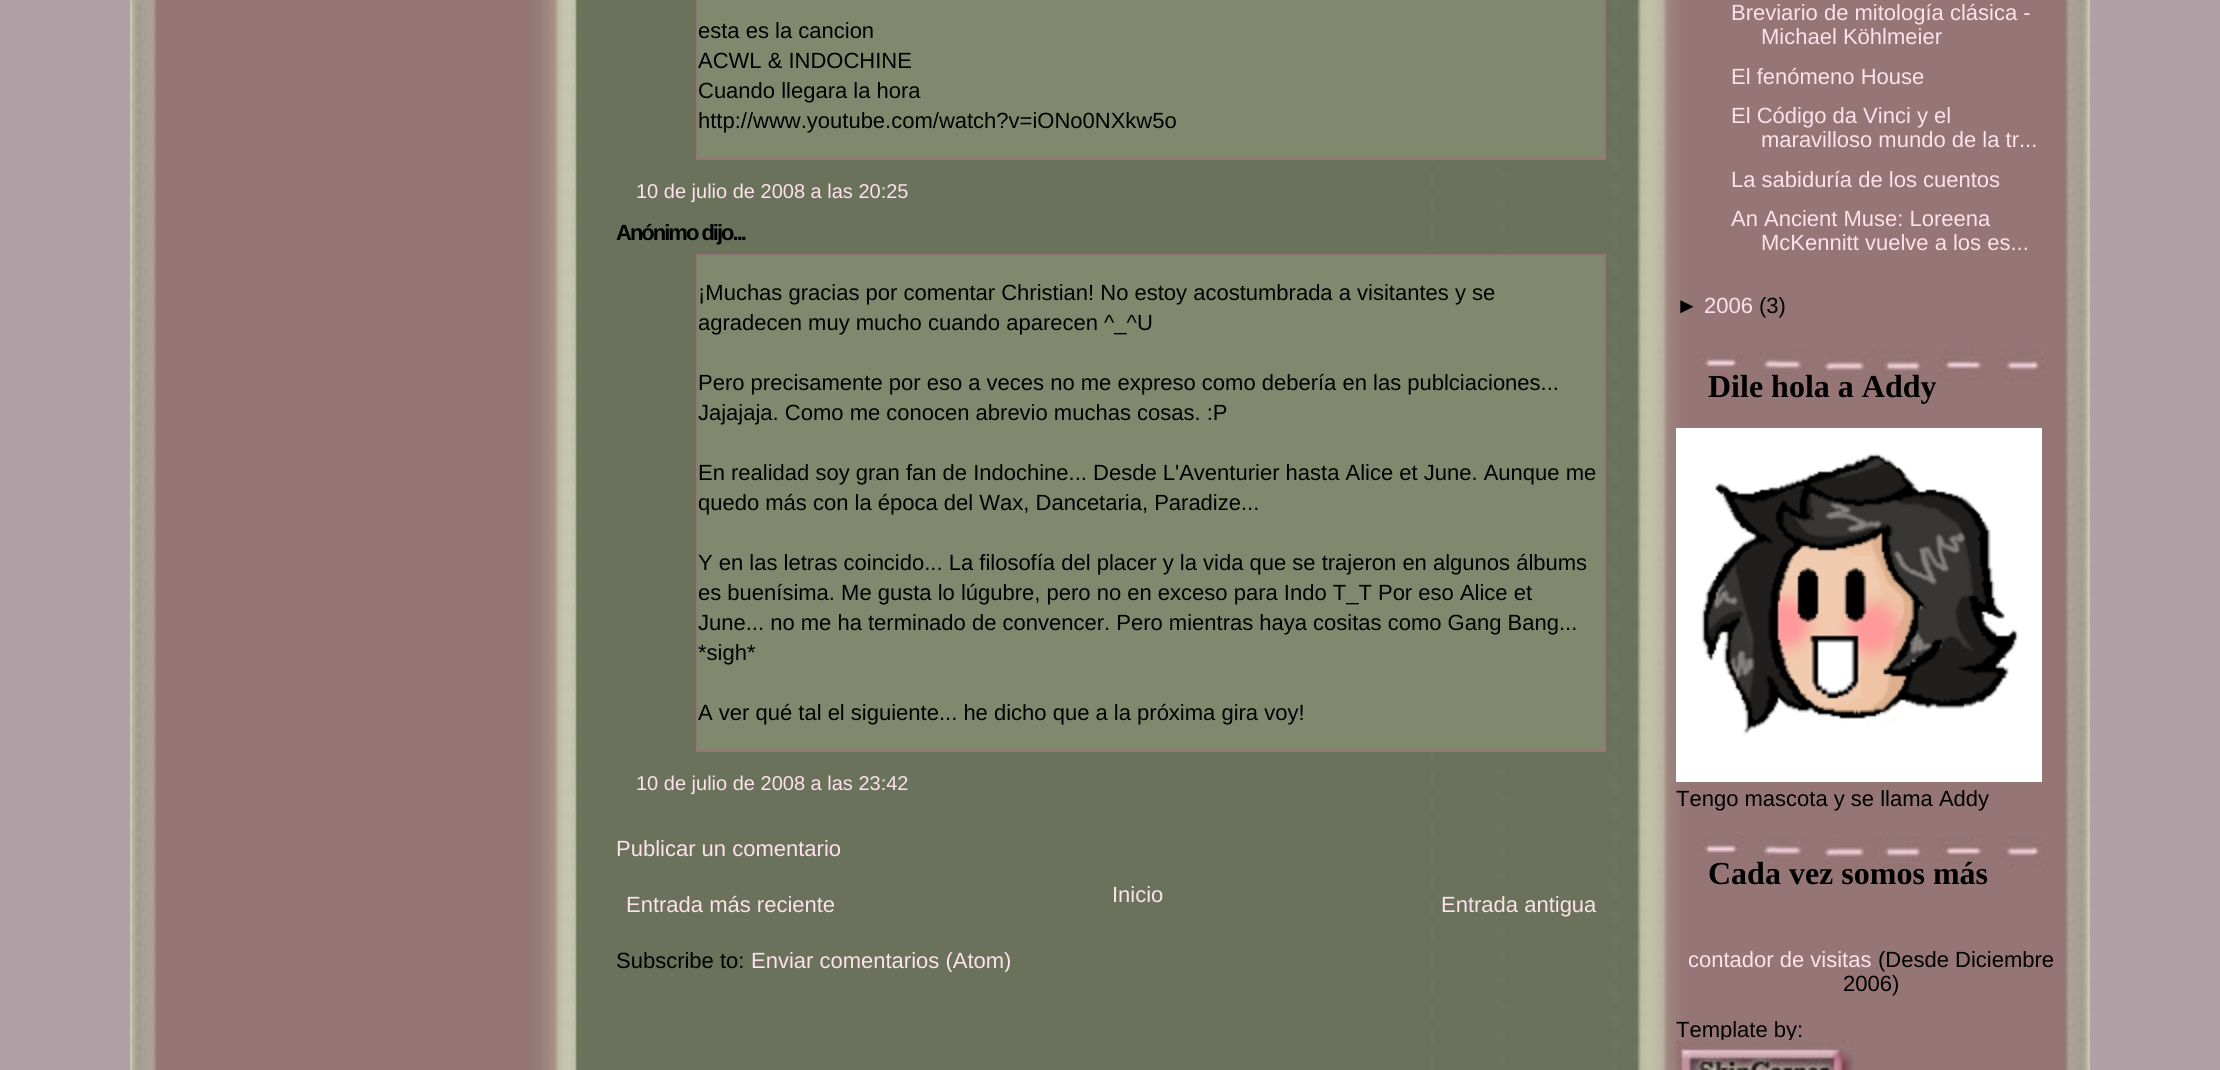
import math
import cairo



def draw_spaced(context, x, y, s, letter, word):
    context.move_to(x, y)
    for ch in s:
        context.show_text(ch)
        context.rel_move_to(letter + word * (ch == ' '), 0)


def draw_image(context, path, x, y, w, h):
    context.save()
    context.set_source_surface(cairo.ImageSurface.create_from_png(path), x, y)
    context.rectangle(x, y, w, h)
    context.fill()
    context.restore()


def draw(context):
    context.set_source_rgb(174 / 255, 160 / 255, 164 / 255)
    context.paint()
    draw_image(context, "images/1.png", 130, 0, 1960, 1070)
    context.set_source_rgb(128 / 255, 137 / 255, 110 / 255)
    context.rectangle(697, -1, 908, 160)
    context.fill_preserve()
    context.set_source_rgb(149 / 255, 117 / 255, 118 / 255)
    context.stroke()
    context.set_source_rgb(128 / 255, 137 / 255, 110 / 255)
    context.rectangle(697, 255, 908, 496)
    context.fill_preserve()
    context.set_source_rgb(149 / 255, 117 / 255, 118 / 255)
    context.stroke()
    draw_image(context, "images/2.png", 1696, 350, 352, 32)
    draw_image(context, "images/3.png", 1676, 428, 366, 354)
    draw_image(context, "images/2.png", 1696, 836, 352, 32)
    context.select_font_face("Liberation Sans")
    context.set_font_size(22)
    context.set_source_rgb(0, 0, 0)
    context.move_to(698, 38)
    context.show_text("esta es la cancion")
    context.move_to(698, 68)
    context.show_text("ACWL & INDOCHINE")
    context.move_to(698, 98)
    context.show_text("Cuando llegara la hora")
    context.move_to(698, 128)
    context.show_text("http://www.youtube.com/watch?v=iONo0NXkw5o")
    context.set_font_size(20)
    context.set_source_rgb(253 / 255, 226 / 255, 235 / 255)
    context.move_to(636, 198)
    context.show_text("10 de julio de 2008 a las 20:25")
    context.select_font_face("Liberation Sans", cairo.FontSlant.NORMAL, cairo.FontWeight.BOLD)
    context.set_font_size(22)
    context.set_source_rgb(0, 0, 0)
    draw_spaced(context, 616, 240, "Anónimo dijo...", -2, 0)
    context.select_font_face("Liberation Sans")
    context.move_to(698, 300)
    context.show_text("¡Muchas gracias por comentar Christian! No estoy acostumbrada a visitantes y se")
    context.move_to(698, 330)
    context.show_text("agradecen muy mucho cuando aparecen ^_^U")
    context.move_to(698, 390)
    context.show_text("Pero precisamente por eso a veces no me expreso como debería en las publciaciones...")
    context.move_to(698, 420)
    context.show_text("Jajajaja. Como me conocen abrevio muchas cosas. :P")
    context.move_to(698, 480)
    context.show_text("En realidad soy gran fan de Indochine... Desde L'Aventurier hasta Alice et June. Aunque me")
    context.move_to(698, 510)
    context.show_text("quedo más con la época del Wax, Dancetaria, Paradize...")
    context.move_to(698, 570)
    context.show_text("Y en las letras coincido... La filosofía del placer y la vida que se trajeron en algunos álbums")
    context.move_to(698, 600)
    context.show_text("es buenísima. Me gusta lo lúgubre, pero no en exceso para Indo T_T Por eso Alice et")
    context.move_to(698, 630)
    context.show_text("June... no me ha terminado de convencer. Pero mientras haya cositas como Gang Bang...")
    context.move_to(698, 660)
    context.show_text("*sigh*")
    context.move_to(698, 720)
    context.show_text("A ver qué tal el siguiente... he dicho que a la próxima gira voy!")
    context.set_font_size(20)
    context.set_source_rgb(253 / 255, 226 / 255, 235 / 255)
    context.move_to(636, 790)
    context.show_text("10 de julio de 2008 a las 23:42")
    context.set_font_size(22)
    context.move_to(616, 856)
    context.show_text("Publicar un comentario")
    context.move_to(626, 912)
    context.show_text("Entrada más reciente")
    context.move_to(1112, 902)
    context.show_text("Inicio")
    context.move_to(1441, 912)
    context.show_text("Entrada antigua")
    context.set_source_rgb(0, 0, 0)
    context.move_to(616, 968)
    context.show_text("Subscribe to:")
    context.save()
    context.rectangle(600, 0, 1006, 972)
    context.clip()
    context.set_source_rgb(253 / 255, 226 / 255, 235 / 255)
    context.move_to(751, 968)
    context.show_text("Enviar comentarios (Atom)")
    context.restore()
    context.set_source_rgb(253 / 255, 226 / 255, 235 / 255)
    context.move_to(1731, 20)
    context.show_text("Breviario de mitología clásica -")
    context.move_to(1761, 44)
    context.show_text("Michael Köhlmeier")
    context.move_to(1731, 84)
    context.show_text("El fenómeno House")
    context.move_to(1731, 123)
    context.show_text("El Código da Vinci y el")
    context.move_to(1761, 147)
    context.show_text("maravilloso mundo de la tr...")
    context.move_to(1731, 187)
    context.show_text("La sabiduría de los cuentos")
    context.move_to(1731, 226)
    context.show_text("An Ancient Muse: Loreena")
    context.move_to(1761, 250)
    context.show_text("McKennitt vuelve a los es...")
    context.set_source_rgb(0, 0, 0)
    context.move_to(1676, 313)
    context.show_text("►")
    context.set_source_rgb(253 / 255, 226 / 255, 235 / 255)
    context.move_to(1704, 313)
    context.show_text("2006")
    context.set_source_rgb(0, 0, 0)
    context.move_to(1759, 313)
    context.show_text("(3)")
    context.select_font_face("Liberation Serif", cairo.FontSlant.NORMAL, cairo.FontWeight.BOLD)
    context.set_font_size(32)
    context.move_to(1708, 397)
    context.show_text("Dile hola a Addy")
    context.select_font_face("Liberation Sans")
    context.set_font_size(22)
    context.move_to(1676, 806)
    context.show_text("Tengo mascota y se llama Addy")
    context.select_font_face("Liberation Serif", cairo.FontSlant.NORMAL, cairo.FontWeight.BOLD)
    context.set_font_size(32)
    context.move_to(1708, 884)
    context.show_text("Cada vez somos más")
    context.select_font_face("Liberation Sans")
    context.set_font_size(22)
    context.set_source_rgb(253 / 255, 226 / 255, 235 / 255)
    context.move_to(1688, 967)
    context.show_text("contador de visitas")
    context.set_source_rgb(0, 0, 0)
    context.move_to(1878, 967)
    context.show_text("(Desde Diciembre")
    context.move_to(1843, 991)
    context.show_text("2006)")
    context.move_to(1676, 1037)
    context.show_text("Template by:")
    draw_image(context, "images/4.png", 1676, 1040, 178, 30)


surface = cairo.ImageSurface(cairo.Format.RGB24, 2220, 1070)
context = cairo.Context(surface)
options = cairo.FontOptions()
options.set_hint_metrics(cairo.HintMetrics.OFF)
options.set_hint_style(cairo.HintStyle.NONE)
context.set_font_options(options)
context.set_miter_limit(4)
draw(context)
surface.write_to_png("out.png")
